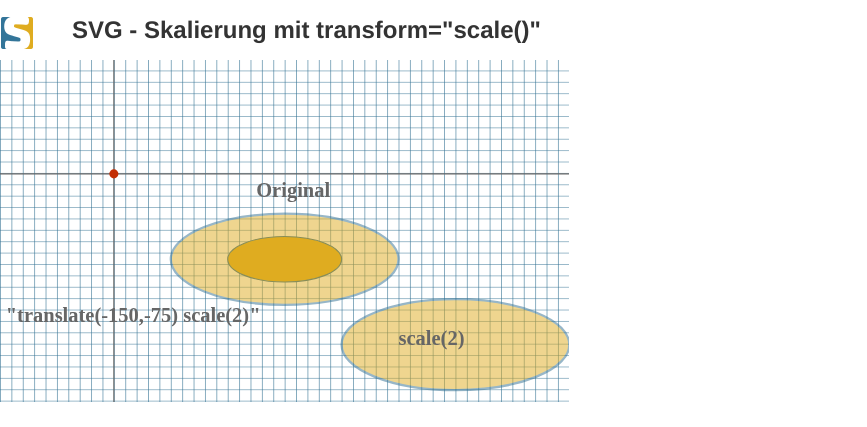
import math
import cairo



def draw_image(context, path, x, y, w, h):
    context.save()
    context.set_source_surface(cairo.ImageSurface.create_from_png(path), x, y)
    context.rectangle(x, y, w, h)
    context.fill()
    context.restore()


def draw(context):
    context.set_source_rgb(1, 1, 1)
    context.paint()
    draw_image(context, "images/1.png", 1, 17, 32, 32)
    draw_image(context, "images/2.png", 0, 60, 569, 342)
    context.select_font_face("Liberation Sans", cairo.FontSlant.NORMAL, cairo.FontWeight.BOLD)
    context.set_font_size(24)
    context.set_source_rgb(51 / 255, 51 / 255, 51 / 255)
    context.move_to(72, 38)
    context.show_text("SVG - Skalierung mit transform=\"scale()\"")


surface = cairo.ImageSurface(cairo.Format.RGB24, 867, 427)
context = cairo.Context(surface)
options = cairo.FontOptions()
options.set_hint_metrics(cairo.HintMetrics.OFF)
options.set_hint_style(cairo.HintStyle.NONE)
context.set_font_options(options)
context.set_miter_limit(4)
draw(context)
surface.write_to_png("out.png")
